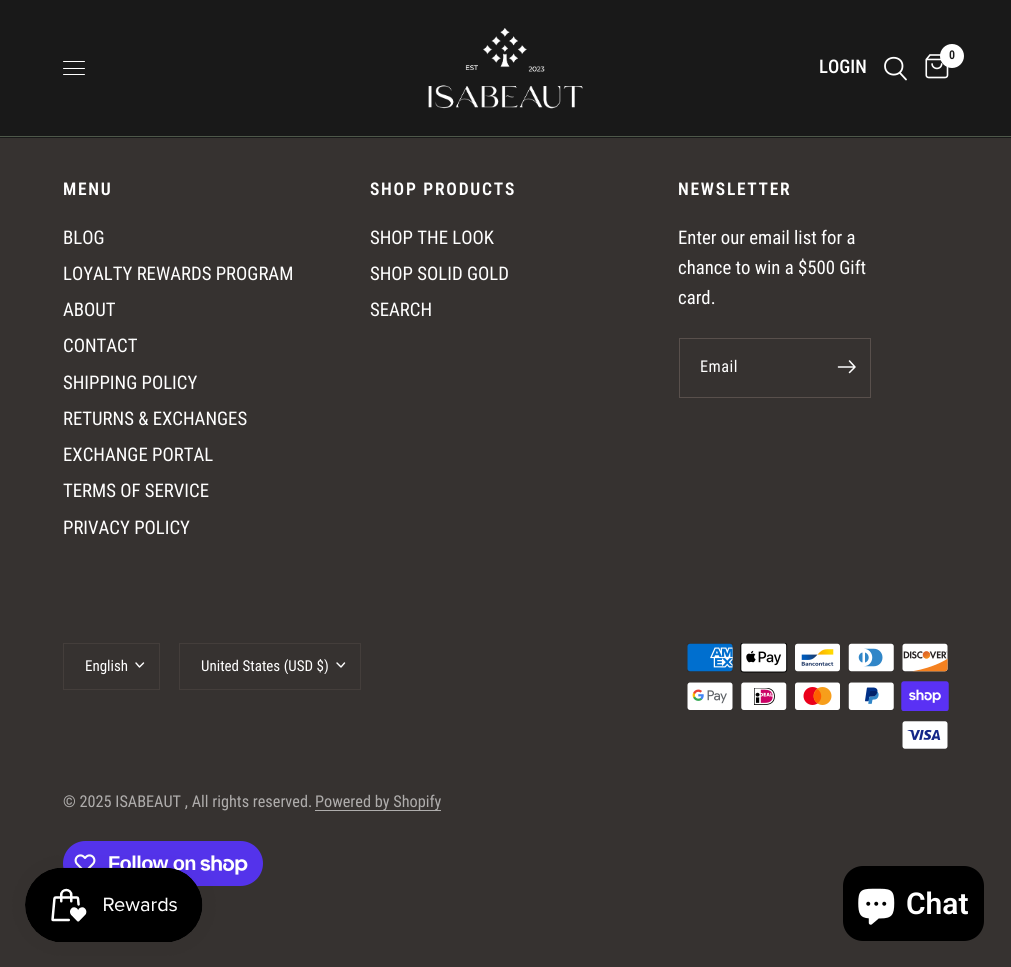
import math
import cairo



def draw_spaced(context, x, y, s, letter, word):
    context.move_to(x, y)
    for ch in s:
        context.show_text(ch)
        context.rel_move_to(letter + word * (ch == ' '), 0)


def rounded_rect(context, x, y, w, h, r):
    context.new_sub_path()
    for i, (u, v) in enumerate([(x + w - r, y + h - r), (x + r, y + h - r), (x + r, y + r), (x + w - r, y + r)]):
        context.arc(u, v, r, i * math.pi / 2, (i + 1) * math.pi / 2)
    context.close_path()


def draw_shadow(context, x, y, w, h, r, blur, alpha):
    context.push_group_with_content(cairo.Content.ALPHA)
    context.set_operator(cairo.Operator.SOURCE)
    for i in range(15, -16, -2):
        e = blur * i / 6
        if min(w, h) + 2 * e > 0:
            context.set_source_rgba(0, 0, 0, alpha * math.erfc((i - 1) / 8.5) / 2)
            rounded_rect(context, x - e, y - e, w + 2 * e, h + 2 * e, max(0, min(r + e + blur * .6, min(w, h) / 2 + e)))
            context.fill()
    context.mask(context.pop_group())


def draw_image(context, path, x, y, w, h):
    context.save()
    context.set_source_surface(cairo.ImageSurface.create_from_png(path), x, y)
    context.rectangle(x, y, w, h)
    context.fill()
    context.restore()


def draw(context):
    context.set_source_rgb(54 / 255, 50 / 255, 48 / 255)
    context.paint()
    context.set_source_rgb(25 / 255, 25 / 255, 25 / 255)
    context.rectangle(0, 0, 1011, 138)
    context.fill()
    context.set_source_rgb(78 / 255, 88 / 255, 74 / 255)
    context.rectangle(0, 136, 1011, 1)
    context.fill()
    context.set_source_rgb(1, 1, 1)
    rounded_rect(context, 63, 61, 22, 1, 0.5)
    context.fill()
    rounded_rect(context, 63, 68, 22, 1, 0.5)
    context.fill()
    rounded_rect(context, 63, 74, 22, 1, 0.5)
    context.fill()
    draw_image(context, "images/1.png", 428, 28, 155, 81)
    draw_image(context, "images/2.png", 925, 54, 24, 25)
    context.arc(952, 56, 12, 0, 2 * math.pi)
    context.fill()
    context.new_path()
    context.move_to(900, 73)
    context.line_to(906, 79.5)
    context.move_to(902.5, 66)
    context.curve_to(902.5, 77.5, 885, 77.5, 885, 66)
    context.curve_to(885, 55, 902.5, 55, 902.5, 66)
    context.close_path()
    context.set_line_width(1.8)
    context.set_line_cap(cairo.LineCap.ROUND)
    context.set_line_join(cairo.LineJoin.ROUND)
    context.stroke()
    context.rectangle(679.5, 338.5, 191, 59)
    context.set_source_rgb(89 / 255, 80 / 255, 76 / 255)
    context.set_line_width(1)
    context.set_line_cap(cairo.LineCap.BUTT)
    context.set_line_join(cairo.LineJoin.MITER)
    context.stroke()
    context.new_path()
    context.move_to(838.5, 367)
    context.line_to(853.5, 367)
    context.move_to(849.5, 361)
    context.line_to(855, 367)
    context.line_to(849.5, 372.5)
    context.set_source_rgb(1, 1, 1)
    context.set_line_width(1.5)
    context.set_line_cap(cairo.LineCap.ROUND)
    context.set_line_join(cairo.LineJoin.ROUND)
    context.stroke()
    context.rectangle(63.5, 643.5, 96, 46)
    context.set_source_rgb(68 / 255, 62 / 255, 59 / 255)
    context.set_line_width(1)
    context.set_line_cap(cairo.LineCap.BUTT)
    context.set_line_join(cairo.LineJoin.MITER)
    context.stroke()
    context.new_path()
    context.move_to(143.5, 663)
    context.line_to(139.5, 667)
    context.line_to(136, 663)
    context.set_source_rgb(1, 1, 1)
    context.set_line_width(1.4)
    context.set_line_cap(cairo.LineCap.ROUND)
    context.set_line_join(cairo.LineJoin.ROUND)
    context.stroke()
    context.rectangle(179.5, 643.5, 181, 46)
    context.set_source_rgb(68 / 255, 62 / 255, 59 / 255)
    context.set_line_width(1)
    context.set_line_cap(cairo.LineCap.BUTT)
    context.set_line_join(cairo.LineJoin.MITER)
    context.stroke()
    context.new_path()
    context.move_to(344.5, 663)
    context.line_to(341, 667)
    context.line_to(337, 663)
    context.set_source_rgb(1, 1, 1)
    context.set_line_width(1.4)
    context.set_line_cap(cairo.LineCap.ROUND)
    context.set_line_join(cairo.LineJoin.ROUND)
    context.stroke()
    draw_image(context, "images/3.png", 687, 643, 46, 29)
    draw_image(context, "images/4.png", 740, 643, 48, 30)
    draw_image(context, "images/5.png", 795, 643, 45, 29)
    draw_image(context, "images/6.png", 848, 643, 46, 29)
    draw_image(context, "images/7.png", 902, 643, 46, 29)
    draw_image(context, "images/8.png", 687, 682, 46, 28)
    draw_image(context, "images/9.png", 741, 682, 46, 28)
    draw_image(context, "images/10.png", 795, 682, 45, 28)
    draw_image(context, "images/11.png", 848, 682, 46, 28)
    draw_image(context, "images/12.png", 901, 681, 48, 30)
    draw_image(context, "images/13.png", 902, 721, 46, 28)
    context.set_source_rgb(175 / 255, 173 / 255, 172 / 255)
    context.rectangle(315, 810, 126, 1)
    context.fill()
    context.set_source_rgb(84 / 255, 51 / 255, 235 / 255)
    rounded_rect(context, 63, 841, 200, 45, 22.5)
    context.fill()
    draw_image(context, "images/14.png", 74, 854, 22, 14)
    draw_image(context, "images/15.png", 200, 855, 48, 20)
    context.set_source_rgb(0, 0, 0)
    draw_shadow(context, 25, 868, 178, 75, 37.5, 15.5, 0.05)
    context.set_source_rgb(0, 0, 0)
    rounded_rect(context, 843, 866, 141, 75, 20)
    context.fill()
    draw_image(context, "images/17.png", 858, 888, 37, 37)
    context.select_font_face("Roboto Condensed SemiBold")
    context.set_font_size(12)
    context.set_source_rgb(25 / 255, 25 / 255, 25 / 255)
    context.move_to(949, 59)
    context.show_text("0")
    context.select_font_face("Roboto Condensed Medium")
    context.set_font_size(18.75)
    context.set_source_rgb(1, 1, 1)
    context.move_to(819, 73)
    context.show_text("LOGIN")
    context.select_font_face("Roboto Condensed SemiBold")
    context.set_font_size(17.5)
    draw_spaced(context, 63, 195, "MENU", 1.75, 0)
    context.select_font_face("Roboto Condensed")
    context.set_font_size(18.75)
    context.move_to(63, 244)
    context.show_text("BLOG")
    context.move_to(63, 280)
    context.show_text("LOYALTY REWARDS PROGRAM")
    context.move_to(63, 316)
    context.show_text("ABOUT")
    context.move_to(63, 352)
    context.show_text("CONTACT")
    context.move_to(63, 389)
    context.show_text("SHIPPING POLICY")
    context.move_to(63, 425)
    context.show_text("RETURNS & EXCHANGES")
    context.move_to(63, 461)
    context.show_text("EXCHANGE PORTAL")
    context.move_to(63, 497)
    context.show_text("TERMS OF SERVICE")
    context.move_to(63, 534)
    context.show_text("PRIVACY POLICY")
    context.select_font_face("Roboto Condensed SemiBold")
    context.set_font_size(17.5)
    draw_spaced(context, 370, 195, "SHOP PRODUCTS", 1.75, 0)
    context.select_font_face("Roboto Condensed")
    context.set_font_size(18.75)
    context.move_to(370, 244)
    context.show_text("SHOP THE LOOK")
    context.move_to(370, 280)
    context.show_text("SHOP SOLID GOLD")
    context.move_to(370, 316)
    context.show_text("SEARCH")
    context.select_font_face("Roboto Condensed SemiBold")
    context.set_font_size(17.5)
    draw_spaced(context, 678, 195, "NEWSLETTER", 1.75, 0)
    context.select_font_face("Roboto Condensed")
    context.set_font_size(18.75)
    context.move_to(678, 244)
    context.show_text("Enter our email list for a")
    context.move_to(678, 274)
    context.show_text("chance to win a $500 Gift")
    context.move_to(678, 304)
    context.show_text("card.")
    context.set_font_size(16.25)
    draw_spaced(context, 700, 372, "Email", 0.5, 0)
    context.set_font_size(15)
    context.move_to(85, 671)
    context.show_text("English")
    context.save()
    context.rectangle(201, 659, 129, 15)
    context.clip()
    context.move_to(201, 671)
    context.show_text("United States (USD $)")
    context.restore()
    context.set_font_size(16.25)
    context.set_source_rgb(175 / 255, 173 / 255, 172 / 255)
    context.move_to(63, 807)
    context.show_text("© 2025 ISABEAUT , All rights reserved.")
    context.move_to(315, 807)
    context.show_text("Powered by Shopify")
    context.select_font_face("Liberation Sans", cairo.FontSlant.NORMAL, cairo.FontWeight.BOLD)
    context.set_font_size(20)
    context.set_source_rgb(1, 1, 1)
    draw_spaced(context, 108, 870, "Follow on", -0.6, 0)
    draw_image(context, "images/16.png", 25, 867, 178, 75)
    context.select_font_face("Roboto SemiBold")
    context.set_font_size(30)
    context.move_to(906, 914)
    context.show_text("Chat")


surface = cairo.ImageSurface(cairo.Format.RGB24, 1011, 967)
context = cairo.Context(surface)
options = cairo.FontOptions()
options.set_hint_metrics(cairo.HintMetrics.OFF)
options.set_hint_style(cairo.HintStyle.NONE)
context.set_font_options(options)
context.set_miter_limit(4)
draw(context)
surface.write_to_png("out.png")
